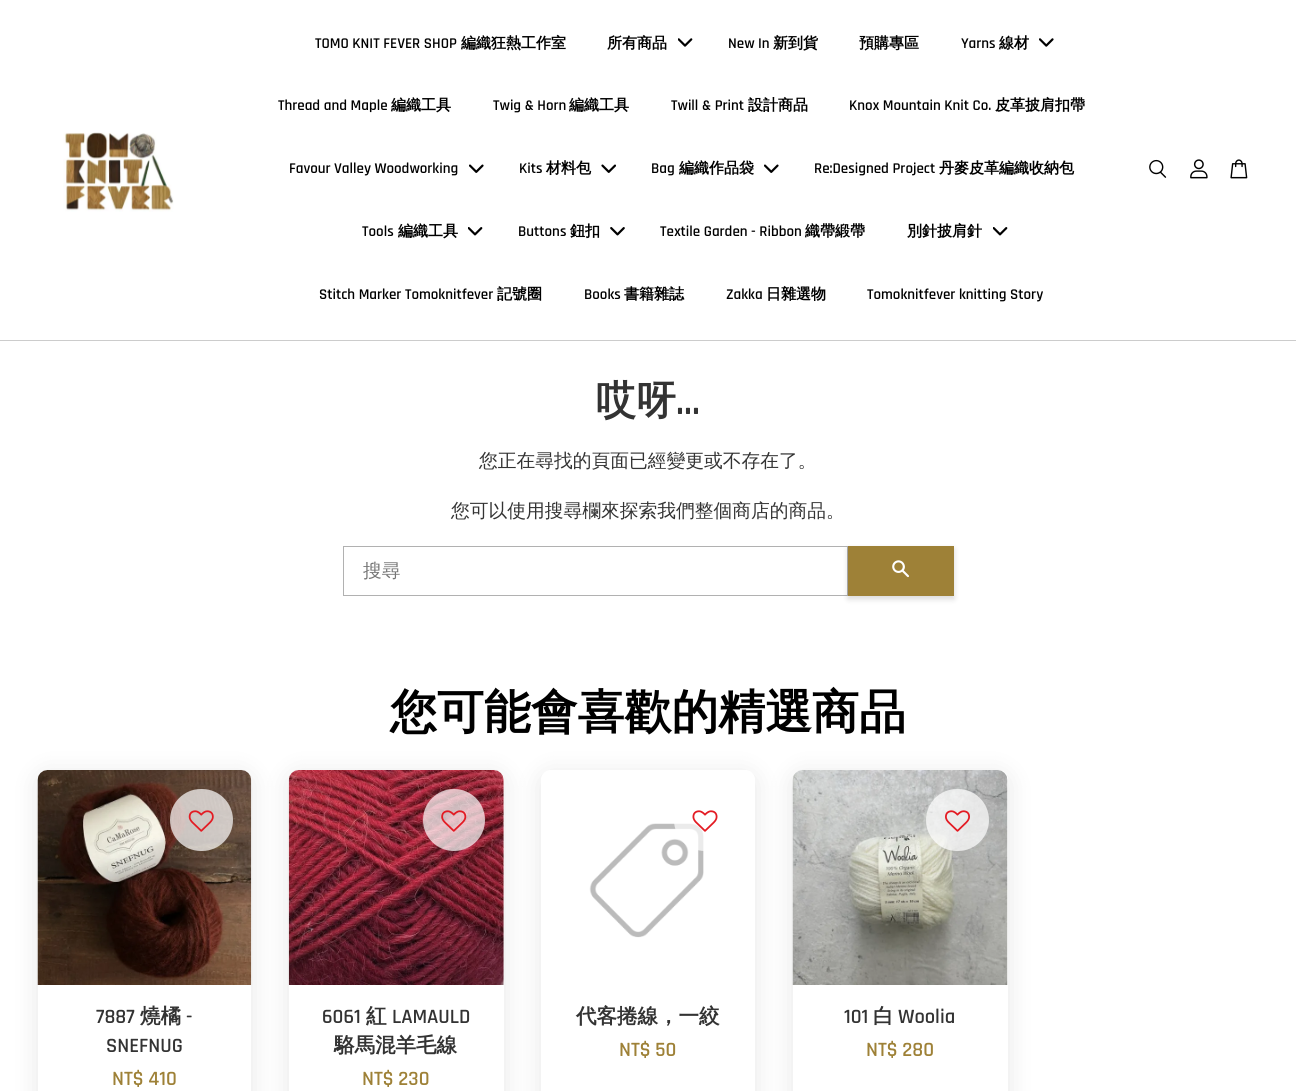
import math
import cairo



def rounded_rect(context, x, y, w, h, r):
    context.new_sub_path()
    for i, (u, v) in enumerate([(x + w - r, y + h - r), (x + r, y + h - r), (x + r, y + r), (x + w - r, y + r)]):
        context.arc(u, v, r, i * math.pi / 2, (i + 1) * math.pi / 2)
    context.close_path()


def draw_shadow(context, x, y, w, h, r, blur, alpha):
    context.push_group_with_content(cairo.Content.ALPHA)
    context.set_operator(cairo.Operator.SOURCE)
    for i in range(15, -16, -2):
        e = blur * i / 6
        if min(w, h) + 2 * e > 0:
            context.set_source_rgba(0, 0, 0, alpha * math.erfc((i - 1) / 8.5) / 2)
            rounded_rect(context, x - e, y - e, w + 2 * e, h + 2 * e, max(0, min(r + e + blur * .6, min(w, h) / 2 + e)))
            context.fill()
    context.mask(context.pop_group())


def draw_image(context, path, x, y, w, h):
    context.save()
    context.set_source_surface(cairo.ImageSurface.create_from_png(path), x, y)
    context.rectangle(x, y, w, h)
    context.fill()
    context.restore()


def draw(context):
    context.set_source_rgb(1, 1, 1)
    context.paint()
    context.set_source_rgb(204 / 255, 204 / 255, 204 / 255)
    context.rectangle(0, 340, 1296, 1)
    context.fill()
    draw_image(context, "images/1.png", 63, 132, 111, 80)
    draw_image(context, "images/2.png", 678, 38, 15, 9)
    draw_image(context, "images/3.png", 1039, 38, 15, 9)
    draw_image(context, "images/4.png", 469, 164, 15, 9)
    draw_image(context, "images/5.png", 601, 164, 15, 9)
    draw_image(context, "images/4.png", 764, 164, 15, 9)
    draw_image(context, "images/6.png", 468, 227, 15, 9)
    draw_image(context, "images/7.png", 610, 227, 15, 9)
    draw_image(context, "images/6.png", 993, 227, 15, 9)
    draw_image(context, "images/8.png", 1149, 159, 18, 19)
    draw_image(context, "images/9.png", 1190, 159, 18, 20)
    draw_image(context, "images/10.png", 1230, 159, 18, 20)
    context.rectangle(343.5, 546.5, 504, 49)
    context.set_source_rgb(177 / 255, 177 / 255, 177 / 255)
    context.set_line_width(1)
    context.stroke()
    context.set_source_rgb(0, 0, 0)
    draw_shadow(context, 848, 549, 106, 50, 0, 3, 0.15)
    context.set_source_rgb(158 / 255, 129 / 255, 55 / 255)
    context.rectangle(848, 546, 106, 50)
    context.fill()
    draw_image(context, "images/11.png", 892, 560, 17, 18)
    context.save()
    context.set_fill_rule(cairo.FillRule.EVEN_ODD)
    context.new_path()
    context.move_to(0, 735)
    context.line_to(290, 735)
    context.line_to(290, 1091)
    context.line_to(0, 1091)
    context.close_path()
    context.move_to(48, 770)
    context.line_to(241, 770)
    context.curve_to(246.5, 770, 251, 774.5, 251, 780)
    context.line_to(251, 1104)
    context.curve_to(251, 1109.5, 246.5, 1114, 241, 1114)
    context.line_to(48, 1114)
    context.curve_to(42.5, 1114, 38, 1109.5, 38, 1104)
    context.line_to(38, 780)
    context.curve_to(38, 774.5, 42.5, 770, 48, 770)
    context.close_path()
    context.clip()
    context.set_source_rgb(0, 0, 0)
    draw_shadow(context, 38, 774, 213, 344, 10, 12.5, 0.1)
    context.restore()
    draw_image(context, "images/12.png", 37, 770, 215, 215)
    context.set_source_rgba(1, 1, 1, 0.7)
    rounded_rect(context, 170, 789, 63, 62, 31)
    context.fill()
    draw_image(context, "images/13.png", 188, 810, 26, 22)
    context.save()
    context.set_fill_rule(cairo.FillRule.EVEN_ODD)
    context.new_path()
    context.move_to(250, 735)
    context.line_to(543, 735)
    context.line_to(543, 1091)
    context.line_to(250, 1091)
    context.close_path()
    context.move_to(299, 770)
    context.line_to(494, 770)
    context.curve_to(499.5, 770, 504, 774.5, 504, 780)
    context.line_to(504, 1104)
    context.curve_to(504, 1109.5, 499.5, 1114, 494, 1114)
    context.line_to(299, 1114)
    context.curve_to(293.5, 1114, 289, 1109.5, 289, 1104)
    context.line_to(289, 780)
    context.curve_to(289, 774.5, 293.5, 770, 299, 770)
    context.close_path()
    context.clip()
    context.set_source_rgb(0, 0, 0)
    draw_shadow(context, 289, 774, 215, 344, 10, 12.5, 0.1)
    context.restore()
    draw_image(context, "images/14.png", 288, 770, 216, 215)
    context.arc(454, 820, 31, 0, 2 * math.pi)
    context.fill()
    draw_image(context, "images/15.png", 441, 810, 26, 22)
    context.save()
    context.set_fill_rule(cairo.FillRule.EVEN_ODD)
    context.new_path()
    context.move_to(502, 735)
    context.line_to(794, 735)
    context.line_to(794, 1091)
    context.line_to(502, 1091)
    context.close_path()
    context.move_to(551, 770)
    context.line_to(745, 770)
    context.curve_to(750.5, 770, 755, 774.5, 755, 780)
    context.line_to(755, 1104)
    context.curve_to(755, 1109.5, 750.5, 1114, 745, 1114)
    context.line_to(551, 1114)
    context.curve_to(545.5, 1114, 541, 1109.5, 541, 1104)
    context.line_to(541, 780)
    context.curve_to(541, 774.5, 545.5, 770, 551, 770)
    context.close_path()
    context.clip()
    context.set_source_rgb(0, 0, 0)
    draw_shadow(context, 541, 774, 214, 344, 10, 12.5, 0.1)
    context.restore()
    draw_image(context, "images/16.png", 589, 823, 115, 115)
    context.arc(705, 820, 31, 0, 2 * math.pi)
    context.fill()
    draw_image(context, "images/17.png", 692, 810, 26, 22)
    context.save()
    context.set_fill_rule(cairo.FillRule.EVEN_ODD)
    context.new_path()
    context.move_to(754, 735)
    context.line_to(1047, 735)
    context.line_to(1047, 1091)
    context.line_to(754, 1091)
    context.close_path()
    context.move_to(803, 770)
    context.line_to(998, 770)
    context.curve_to(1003.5, 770, 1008, 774.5, 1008, 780)
    context.line_to(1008, 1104)
    context.curve_to(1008, 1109.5, 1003.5, 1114, 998, 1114)
    context.line_to(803, 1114)
    context.curve_to(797.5, 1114, 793, 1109.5, 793, 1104)
    context.line_to(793, 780)
    context.curve_to(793, 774.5, 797.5, 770, 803, 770)
    context.close_path()
    context.clip()
    context.set_source_rgb(0, 0, 0)
    draw_shadow(context, 793, 774, 215, 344, 10, 12.5, 0.1)
    context.restore()
    draw_image(context, "images/18.png", 792, 770, 216, 215)
    rounded_rect(context, 926, 789, 63, 62, 31)
    context.fill()
    draw_image(context, "images/19.png", 945, 810, 25, 22)
    context.select_font_face("Rajdhani SemiBold")
    context.set_font_size(15)
    context.set_source_rgb(0, 0, 0)
    context.move_to(315, 48)
    context.show_text("TOMO KNIT FEVER SHOP")
    context.select_font_face("WenQuanYi Zen Hei", cairo.FontSlant.NORMAL, cairo.FontWeight.BOLD)
    context.move_to(461, 48)
    context.show_text("編織狂熱工作室")
    context.move_to(607, 48)
    context.show_text("所有商品")
    context.select_font_face("Rajdhani SemiBold")
    context.move_to(728, 48)
    context.show_text("New In")
    context.select_font_face("WenQuanYi Zen Hei", cairo.FontSlant.NORMAL, cairo.FontWeight.BOLD)
    context.move_to(773, 48)
    context.show_text("新到貨")
    context.move_to(859, 48)
    context.show_text("預購專區")
    context.select_font_face("Rajdhani SemiBold")
    context.move_to(961, 48)
    context.show_text("Yarns")
    context.select_font_face("WenQuanYi Zen Hei", cairo.FontSlant.NORMAL, cairo.FontWeight.BOLD)
    context.move_to(999, 48)
    context.show_text("線材")
    context.select_font_face("Rajdhani SemiBold")
    context.move_to(278, 110)
    context.show_text("Thread and Maple")
    context.select_font_face("WenQuanYi Zen Hei", cairo.FontSlant.NORMAL, cairo.FontWeight.BOLD)
    context.move_to(391, 110)
    context.show_text("編織工具")
    context.select_font_face("Rajdhani SemiBold")
    context.move_to(493, 110)
    context.show_text("Twig & Horn")
    context.select_font_face("WenQuanYi Zen Hei", cairo.FontSlant.NORMAL, cairo.FontWeight.BOLD)
    context.move_to(569, 110)
    context.show_text("編織工具")
    context.select_font_face("Rajdhani SemiBold")
    context.move_to(671, 110)
    context.show_text("Twill & Print")
    context.select_font_face("WenQuanYi Zen Hei", cairo.FontSlant.NORMAL, cairo.FontWeight.BOLD)
    context.move_to(748, 110)
    context.show_text("設計商品")
    context.select_font_face("Rajdhani SemiBold")
    context.move_to(849, 110)
    context.show_text("Knox Mountain Knit Co.")
    context.select_font_face("WenQuanYi Zen Hei", cairo.FontSlant.NORMAL, cairo.FontWeight.BOLD)
    context.move_to(995, 110)
    context.show_text("皮革披肩扣帶")
    context.select_font_face("Rajdhani SemiBold")
    context.move_to(289, 173)
    context.show_text("Favour Valley Woodworking")
    context.move_to(519, 173)
    context.show_text("Kits")
    context.select_font_face("WenQuanYi Zen Hei", cairo.FontSlant.NORMAL, cairo.FontWeight.BOLD)
    context.move_to(546, 173)
    context.show_text("材料包")
    context.select_font_face("Rajdhani SemiBold")
    context.move_to(651, 173)
    context.show_text("Bag")
    context.select_font_face("WenQuanYi Zen Hei", cairo.FontSlant.NORMAL, cairo.FontWeight.BOLD)
    context.move_to(679, 173)
    context.show_text("編織作品袋")
    context.select_font_face("Rajdhani SemiBold")
    context.move_to(814, 173)
    context.show_text("Re:Designed Project")
    context.select_font_face("WenQuanYi Zen Hei", cairo.FontSlant.NORMAL, cairo.FontWeight.BOLD)
    context.move_to(939, 173)
    context.show_text("丹麥皮革編織收納包")
    context.select_font_face("Rajdhani SemiBold")
    context.move_to(362, 236)
    context.show_text("Tools")
    context.select_font_face("WenQuanYi Zen Hei", cairo.FontSlant.NORMAL, cairo.FontWeight.BOLD)
    context.move_to(398, 236)
    context.show_text("編織工具")
    context.select_font_face("Rajdhani SemiBold")
    context.move_to(518, 236)
    context.show_text("Buttons")
    context.select_font_face("WenQuanYi Zen Hei", cairo.FontSlant.NORMAL, cairo.FontWeight.BOLD)
    context.move_to(570, 236)
    context.show_text("鈕扣")
    context.select_font_face("Rajdhani SemiBold")
    context.move_to(660, 236)
    context.show_text("Textile Garden - Ribbon")
    context.select_font_face("WenQuanYi Zen Hei", cairo.FontSlant.NORMAL, cairo.FontWeight.BOLD)
    context.move_to(805, 236)
    context.show_text("織帶緞帶")
    context.move_to(907, 236)
    context.show_text("別針披肩針")
    context.select_font_face("Rajdhani SemiBold")
    context.move_to(319, 299)
    context.show_text("Stitch Marker Tomoknitfever")
    context.select_font_face("WenQuanYi Zen Hei", cairo.FontSlant.NORMAL, cairo.FontWeight.BOLD)
    context.move_to(497, 299)
    context.show_text("記號圈")
    context.select_font_face("Rajdhani SemiBold")
    context.move_to(584, 299)
    context.show_text("Books")
    context.select_font_face("WenQuanYi Zen Hei", cairo.FontSlant.NORMAL, cairo.FontWeight.BOLD)
    context.move_to(624, 299)
    context.show_text("書籍雜誌")
    context.select_font_face("Rajdhani SemiBold")
    context.move_to(726, 299)
    context.show_text("Zakka")
    context.select_font_face("WenQuanYi Zen Hei", cairo.FontSlant.NORMAL, cairo.FontWeight.BOLD)
    context.move_to(766, 299)
    context.show_text("日雜選物")
    context.select_font_face("Rajdhani SemiBold")
    context.move_to(867, 299)
    context.show_text("Tomoknitfever knitting Story")
    context.select_font_face("WenQuanYi Zen Hei", cairo.FontSlant.NORMAL, cairo.FontWeight.BOLD)
    context.set_font_size(40)
    context.set_source_rgb(51 / 255, 51 / 255, 51 / 255)
    context.move_to(596, 414)
    context.show_text("哎呀")
    context.select_font_face("Rajdhani SemiBold")
    context.move_to(676, 414)
    context.show_text("...")
    context.select_font_face("WenQuanYi Zen Hei Medium")
    context.set_font_size(18.75)
    context.move_to(479, 467)
    context.show_text("您正在尋找的頁面已經變更或不存在了。")
    context.move_to(451, 517)
    context.show_text("您可以使用搜尋欄來探索我們整個商店的商品。")
    context.set_source_rgb(117 / 255, 117 / 255, 117 / 255)
    context.move_to(363, 577)
    context.show_text("搜尋")
    context.select_font_face("WenQuanYi Zen Hei", cairo.FontSlant.NORMAL, cairo.FontWeight.BOLD)
    context.set_font_size(46.9)
    context.set_source_rgb(0, 0, 0)
    context.move_to(390, 728)
    context.show_text("您可能會喜歡的精選商品")
    context.select_font_face("Rajdhani SemiBold")
    context.set_font_size(20.5)
    context.set_source_rgb(51 / 255, 51 / 255, 51 / 255)
    context.move_to(96, 1023)
    context.show_text("7887")
    context.select_font_face("WenQuanYi Zen Hei", cairo.FontSlant.NORMAL, cairo.FontWeight.BOLD)
    context.move_to(140, 1023)
    context.show_text("燒橘")
    context.select_font_face("Rajdhani SemiBold")
    context.move_to(186, 1023)
    context.show_text("-")
    context.move_to(106, 1052)
    context.show_text("SNEFNUG")
    context.set_source_rgb(158 / 255, 129 / 255, 55 / 255)
    context.move_to(112, 1085)
    context.show_text("NT$ 410")
    context.set_source_rgb(51 / 255, 51 / 255, 51 / 255)
    context.move_to(322, 1023)
    context.show_text("6061")
    context.select_font_face("WenQuanYi Zen Hei", cairo.FontSlant.NORMAL, cairo.FontWeight.BOLD)
    context.move_to(366, 1023)
    context.show_text("紅")
    context.select_font_face("Rajdhani SemiBold")
    context.move_to(392, 1023)
    context.show_text("LAMAULD")
    context.select_font_face("WenQuanYi Zen Hei", cairo.FontSlant.NORMAL, cairo.FontWeight.BOLD)
    context.move_to(334, 1052)
    context.show_text("駱馬混羊毛線")
    context.select_font_face("Rajdhani SemiBold")
    context.set_source_rgb(158 / 255, 129 / 255, 55 / 255)
    context.move_to(362, 1085)
    context.show_text("NT$ 230")
    context.select_font_face("WenQuanYi Zen Hei", cairo.FontSlant.NORMAL, cairo.FontWeight.BOLD)
    context.set_source_rgb(51 / 255, 51 / 255, 51 / 255)
    context.move_to(576, 1023)
    context.show_text("代客捲線，一絞")
    context.select_font_face("Rajdhani SemiBold")
    context.set_source_rgb(158 / 255, 129 / 255, 55 / 255)
    context.move_to(619, 1056)
    context.show_text("NT$ 50")
    context.set_source_rgb(51 / 255, 51 / 255, 51 / 255)
    context.move_to(844, 1023)
    context.show_text("101")
    context.select_font_face("WenQuanYi Zen Hei", cairo.FontSlant.NORMAL, cairo.FontWeight.BOLD)
    context.move_to(873, 1023)
    context.show_text("白")
    context.select_font_face("Rajdhani SemiBold")
    context.move_to(898, 1023)
    context.show_text("Woolia")
    context.set_source_rgb(158 / 255, 129 / 255, 55 / 255)
    context.move_to(866, 1056)
    context.show_text("NT$ 280")


surface = cairo.ImageSurface(cairo.Format.RGB24, 1296, 1091)
context = cairo.Context(surface)
options = cairo.FontOptions()
options.set_hint_metrics(cairo.HintMetrics.OFF)
options.set_hint_style(cairo.HintStyle.NONE)
context.set_font_options(options)
context.set_miter_limit(4)
draw(context)
surface.write_to_png("out.png")
